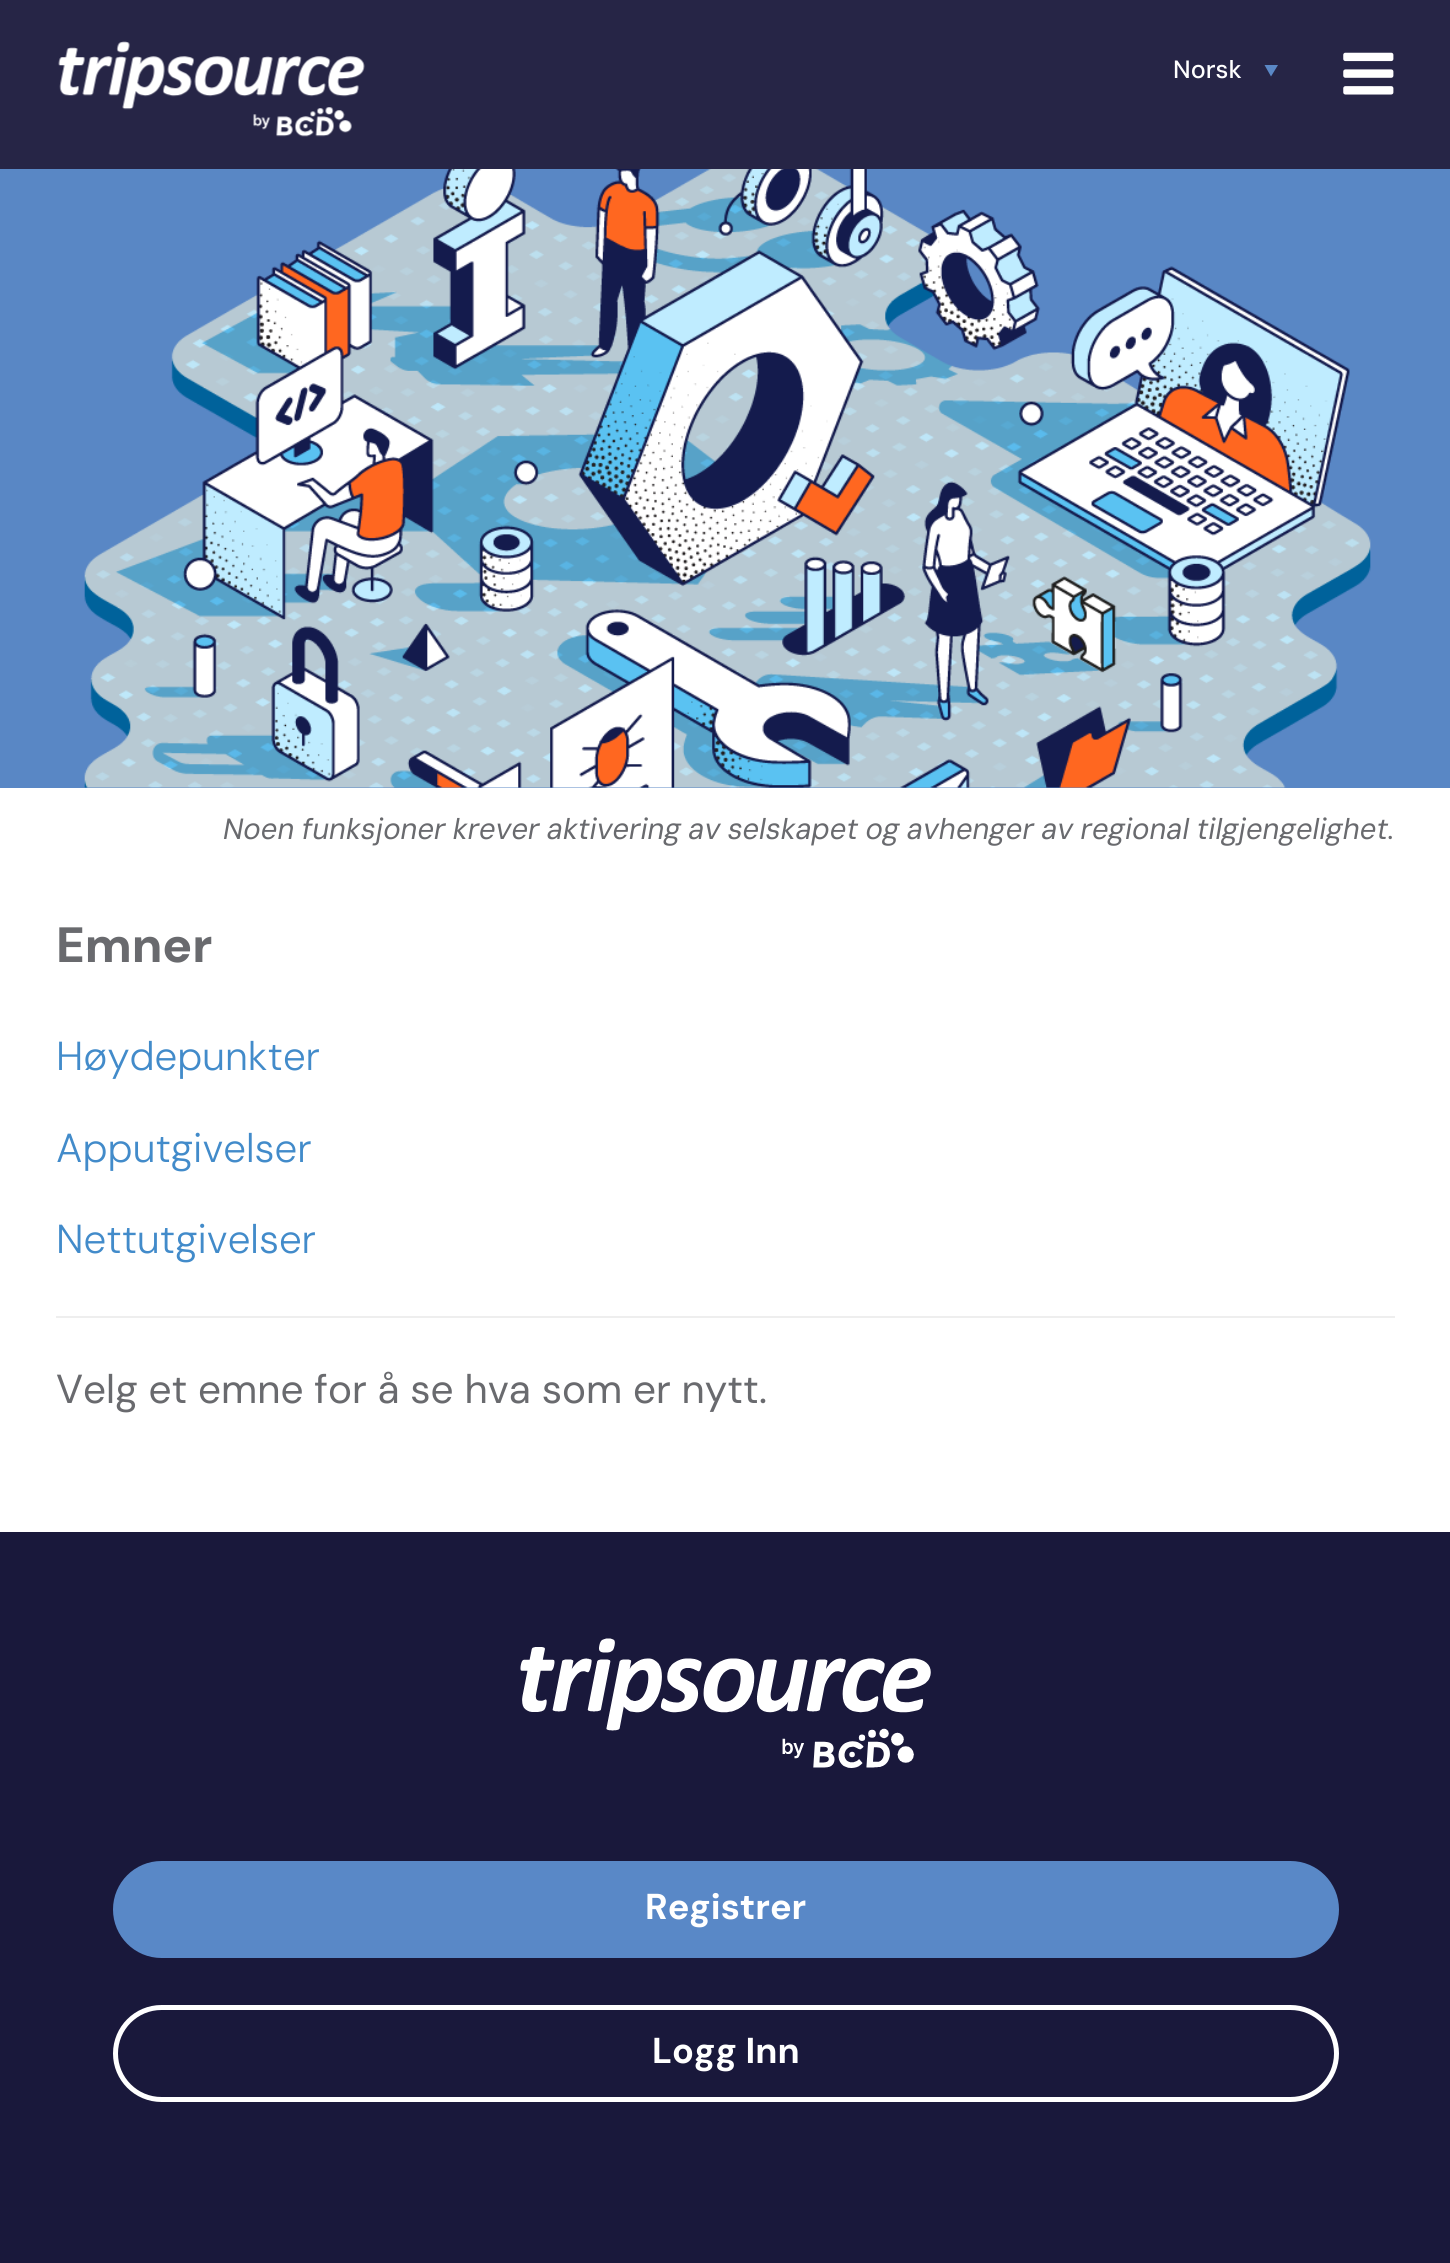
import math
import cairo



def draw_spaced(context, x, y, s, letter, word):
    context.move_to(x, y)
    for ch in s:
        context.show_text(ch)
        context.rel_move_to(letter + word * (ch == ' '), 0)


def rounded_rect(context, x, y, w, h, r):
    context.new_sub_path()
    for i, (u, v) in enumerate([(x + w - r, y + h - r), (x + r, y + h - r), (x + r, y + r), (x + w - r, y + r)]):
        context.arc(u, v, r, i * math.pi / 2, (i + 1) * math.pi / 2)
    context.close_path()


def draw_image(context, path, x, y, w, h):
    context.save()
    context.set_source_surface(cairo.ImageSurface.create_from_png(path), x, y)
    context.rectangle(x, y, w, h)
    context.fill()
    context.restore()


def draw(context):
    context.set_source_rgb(1, 1, 1)
    context.paint()
    context.set_source_rgb(38 / 255, 37 / 255, 70 / 255)
    context.rectangle(0, 0, 1450, 169)
    context.fill()
    draw_image(context, "images/1.png", 58, 41, 307, 96)
    context.set_source_rgb(90 / 255, 136 / 255, 198 / 255)
    context.new_path()
    context.move_to(1264.5, 65)
    context.line_to(1278, 65)
    context.line_to(1271, 76.5)
    context.close_path()
    context.fill()
    draw_image(context, "images/2.png", 1343, 52, 51, 43)
    context.set_source_rgb(89 / 255, 135 / 255, 197 / 255)
    context.rectangle(0, 169, 1450, 619)
    context.fill()
    draw_image(context, "images/3.png", 84, 169, 1287, 619)
    context.set_source_rgb(238 / 255, 238 / 255, 238 / 255)
    context.rectangle(56, 1316, 1339, 2)
    context.fill()
    context.set_source_rgb(25 / 255, 24 / 255, 59 / 255)
    context.rectangle(0, 1532, 1450, 731)
    context.fill()
    draw_image(context, "images/4.png", 520, 1638, 411, 130)
    context.set_source_rgb(89 / 255, 136 / 255, 199 / 255)
    rounded_rect(context, 113, 1861, 1226, 97, 48.5)
    context.fill()
    rounded_rect(context, 115.5, 2007.5, 1221, 92, 46)
    context.set_source_rgb(1, 1, 1)
    context.set_line_width(5)
    context.stroke()
    context.select_font_face("DM Sans Medium")
    context.set_font_size(25)
    context.move_to(1173, 78)
    context.show_text("Norsk")
    context.select_font_face("DM Sans", cairo.FontSlant.ITALIC)
    context.set_font_size(29.25)
    context.set_source_rgb(105 / 255, 106 / 255, 110 / 255)
    draw_spaced(context, 223, 839, "Noen funksjoner krever aktivering av selskapet og avhenger av regional tilgjengelighet.", 0, -0.5)
    context.select_font_face("DM Sans ExtraBold")
    context.set_font_size(49.5)
    context.move_to(56, 962)
    context.show_text("Emner")
    context.select_font_face("DM Sans Light")
    context.set_font_size(40.5)
    context.set_source_rgb(66 / 255, 139 / 255, 202 / 255)
    context.move_to(56, 1070)
    context.show_text("Høydepunkter")
    context.move_to(56, 1162)
    context.show_text("Apputgivelser")
    context.move_to(56, 1253)
    context.show_text("Nettutgivelser")
    context.select_font_face("DM Sans")
    context.set_source_rgb(105 / 255, 106 / 255, 110 / 255)
    context.move_to(56, 1403)
    context.show_text("Velg et emne for å se hva som er nytt.")
    context.select_font_face("DM Sans", cairo.FontSlant.NORMAL, cairo.FontWeight.BOLD)
    context.set_font_size(36)
    context.set_source_rgb(1, 1, 1)
    context.move_to(645, 1919)
    context.show_text("Registrer")
    context.move_to(652, 2063)
    context.show_text("Logg Inn")


surface = cairo.ImageSurface(cairo.Format.RGB24, 1450, 2263)
context = cairo.Context(surface)
options = cairo.FontOptions()
options.set_hint_metrics(cairo.HintMetrics.OFF)
options.set_hint_style(cairo.HintStyle.NONE)
context.set_font_options(options)
context.set_miter_limit(4)
draw(context)
surface.write_to_png("out.png")
